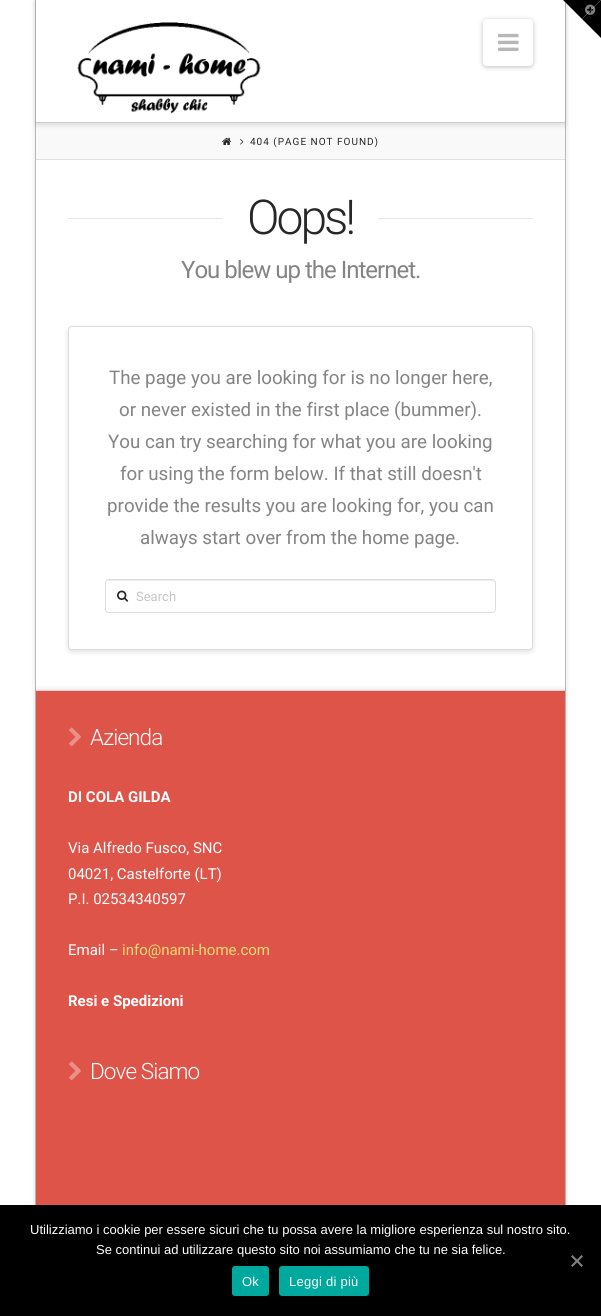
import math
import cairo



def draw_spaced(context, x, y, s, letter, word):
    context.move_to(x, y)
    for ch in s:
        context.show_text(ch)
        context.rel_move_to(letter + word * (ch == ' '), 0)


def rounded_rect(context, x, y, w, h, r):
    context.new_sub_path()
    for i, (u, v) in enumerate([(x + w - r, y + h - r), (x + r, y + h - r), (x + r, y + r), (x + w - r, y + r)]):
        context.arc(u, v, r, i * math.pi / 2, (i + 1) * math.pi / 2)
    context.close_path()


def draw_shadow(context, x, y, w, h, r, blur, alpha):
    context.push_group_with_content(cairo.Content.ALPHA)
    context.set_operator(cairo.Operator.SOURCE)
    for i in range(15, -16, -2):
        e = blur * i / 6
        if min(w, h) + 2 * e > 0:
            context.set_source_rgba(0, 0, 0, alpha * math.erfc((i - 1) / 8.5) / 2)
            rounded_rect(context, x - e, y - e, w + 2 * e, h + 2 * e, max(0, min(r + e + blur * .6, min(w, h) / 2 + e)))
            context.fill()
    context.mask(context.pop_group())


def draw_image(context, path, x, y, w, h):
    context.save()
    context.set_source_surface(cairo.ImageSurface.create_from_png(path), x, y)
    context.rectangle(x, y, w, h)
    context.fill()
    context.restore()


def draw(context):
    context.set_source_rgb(1, 1, 1)
    context.paint()
    context.save()
    context.set_fill_rule(cairo.FillRule.EVEN_ODD)
    context.new_path()
    context.move_to(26, 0)
    context.line_to(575, 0)
    context.line_to(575, 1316)
    context.line_to(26, 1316)
    context.close_path()
    context.move_to(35, 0)
    context.line_to(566, 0)
    context.line_to(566, 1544)
    context.line_to(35, 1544)
    context.close_path()
    context.clip()
    context.set_source_rgb(0, 0, 0)
    draw_shadow(context, 35, 0, 531, 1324, 0, 2.5, 0.12)
    context.restore()
    context.set_source_rgb(185 / 255, 185 / 255, 185 / 255)
    context.rectangle(565, 0, 1, 1205)
    context.fill()
    context.rectangle(35, 0, 1, 1205)
    context.fill()
    context.set_source_rgb(249 / 255, 249 / 255, 249 / 255)
    context.rectangle(36, 123, 529, 36)
    context.fill()
    context.save()
    context.set_fill_rule(cairo.FillRule.EVEN_ODD)
    context.new_path()
    context.move_to(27, 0)
    context.line_to(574, 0)
    context.line_to(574, 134)
    context.line_to(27, 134)
    context.close_path()
    context.move_to(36, 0)
    context.line_to(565, 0)
    context.line_to(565, 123)
    context.line_to(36, 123)
    context.close_path()
    context.clip()
    context.set_source_rgb(0, 0, 0)
    draw_shadow(context, 36, 2, 529, 123, 0, 2.5, 0.13)
    context.restore()
    context.set_source_rgb(0, 0, 0)
    context.new_path()
    context.move_to(563, 0)
    context.line_to(601, 0)
    context.line_to(582, 19)
    context.close_path()
    context.fill()
    context.new_path()
    context.move_to(601, 0)
    context.line_to(601, 38)
    context.line_to(582, 19)
    context.close_path()
    context.fill()
    draw_image(context, "images/1.png", 585, 4, 11, 11)
    context.set_source_rgb(204 / 255, 204 / 255, 204 / 255)
    context.rectangle(36, 122, 529, 1)
    context.fill()
    draw_image(context, "images/2.png", 77, 22, 184, 92)
    context.set_source_rgb(0, 0, 0)
    draw_shadow(context, 483, 20, 50, 47, 4, 2.5, 0.25)
    context.set_source_rgb(1, 1, 1)
    rounded_rect(context, 483, 19, 50, 47, 4)
    context.fill()
    draw_image(context, "images/3.png", 498, 33, 21, 18)
    context.set_source_rgb(224 / 255, 224 / 255, 224 / 255)
    context.rectangle(36, 159, 529, 1)
    context.fill()
    draw_image(context, "images/4.png", 222, 137, 10, 8)
    draw_image(context, "images/5.png", 240, 139, 4, 6)
    context.set_source_rgb(230 / 255, 230 / 255, 230 / 255)
    context.rectangle(68, 218, 155, 1)
    context.fill()
    context.rectangle(378, 218, 155, 1)
    context.fill()
    context.set_source_rgb(0, 0, 0)
    draw_shadow(context, 68, 328, 465, 324, 4, 2.5, 0.13)
    context.set_source_rgb(1, 1, 1)
    rounded_rect(context, 68.5, 326.5, 464, 323, 3.5)
    context.fill_preserve()
    context.set_source_rgb(221 / 255, 221 / 255, 221 / 255)
    context.set_line_width(1)
    context.stroke()
    context.set_source_rgb(236 / 255, 236 / 255, 236 / 255)
    context.new_path()
    context.move_to(109, 581)
    context.line_to(492, 581)
    context.curve_to(494, 581, 495, 582, 495, 584)
    context.curve_to(495, 582, 494, 580, 492, 580)
    context.line_to(109, 580)
    context.line_to(107, 581)
    context.line_to(106, 584)
    context.curve_to(106, 582, 107, 581, 109, 581)
    context.close_path()
    context.fill()
    rounded_rect(context, 105.5, 579.5, 390, 33, 3.5)
    context.set_source_rgb(221 / 255, 221 / 255, 221 / 255)
    context.stroke()
    draw_image(context, "images/6.png", 117, 590, 12, 12)
    context.set_source_rgb(0, 0, 0)
    draw_shadow(context, 36, 688, 529, 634, 0, 2, 0.07)
    context.set_source_rgb(222 / 255, 84 / 255, 73 / 255)
    context.rectangle(36, 691, 529, 514)
    context.fill()
    context.set_source_rgb(212 / 255, 212 / 255, 212 / 255)
    context.rectangle(36, 690, 529, 1)
    context.fill()
    draw_image(context, "images/7.png", 69, 727, 12, 20)
    draw_image(context, "images/7.png", 69, 1061, 12, 20)
    context.set_source_rgb(0, 0, 0)
    context.rectangle(0, 1205, 601, 111)
    context.fill()
    context.set_source_rgb(128 / 255, 128 / 255, 128 / 255)
    context.new_path()
    context.move_to(581.5, 1255)
    context.line_to(583, 1256.5)
    context.line_to(572.5, 1267)
    context.line_to(571, 1265.5)
    context.close_path()
    context.fill()
    context.new_path()
    context.move_to(571, 1256.5)
    context.line_to(572.5, 1255)
    context.line_to(583, 1265.5)
    context.line_to(581.5, 1267)
    context.close_path()
    context.fill()
    context.set_source_rgb(0, 169 / 255, 157 / 255)
    rounded_rect(context, 232, 1266, 37, 30, 3)
    context.fill()
    rounded_rect(context, 279, 1266, 90, 30, 3)
    context.fill()
    context.select_font_face("Roboto")
    context.set_font_size(10)
    context.set_source_rgb(39 / 255, 39 / 255, 39 / 255)
    draw_spaced(context, 250, 145, "404 (PAGE NOT FOUND)", 1, 0)
    context.select_font_face("Roboto Light")
    context.set_font_size(48)
    draw_spaced(context, 247, 234, "Oops!", -3, 0)
    context.select_font_face("Roboto")
    context.set_font_size(24)
    context.set_source_rgb(132 / 255, 132 / 255, 132 / 255)
    draw_spaced(context, 181, 278, "You blew up the Internet.", -1, 0)
    context.set_font_size(18.75)
    context.move_to(109, 384)
    context.show_text("The page you are looking for is no longer here,")
    context.move_to(119, 416)
    context.show_text("or never existed in the first place (bummer).")
    context.move_to(108, 448)
    context.show_text("You can try searching for what you are looking")
    context.move_to(120, 480)
    context.show_text("for using the form below. If that still doesn't")
    context.move_to(107, 512)
    context.show_text("provide the results you are looking for, you can")
    context.move_to(140, 544)
    context.show_text("always start over from the home page.")
    context.set_font_size(13)
    context.set_source_rgb(197 / 255, 197 / 255, 197 / 255)
    context.move_to(136, 601)
    context.show_text("Search")
    context.select_font_face("Roboto Light")
    context.set_font_size(22.5)
    context.set_source_rgb(1, 1, 1)
    draw_spaced(context, 90, 745, "Azienda", -0.9, 0)
    context.select_font_face("Roboto", cairo.FontSlant.NORMAL, cairo.FontWeight.BOLD)
    context.set_font_size(15)
    context.move_to(68, 802)
    context.show_text("DI COLA GILDA")
    context.select_font_face("Roboto")
    context.move_to(68, 853)
    context.show_text("Via Alfredo Fusco, SNC")
    context.move_to(68, 879)
    context.show_text("04021, Castelforte (LT)")
    context.move_to(68, 904)
    context.show_text("P.I. 02534340597")
    context.move_to(68, 955)
    context.show_text("Email –")
    context.set_source_rgb(243 / 255, 219 / 255, 113 / 255)
    context.move_to(122, 955)
    context.show_text("info@nami-home.com")
    context.select_font_face("Roboto", cairo.FontSlant.NORMAL, cairo.FontWeight.BOLD)
    context.set_source_rgb(1, 1, 1)
    context.move_to(68, 1006)
    context.show_text("Resi e Spedizioni")
    context.select_font_face("Roboto Light")
    context.set_font_size(22.5)
    draw_spaced(context, 90, 1079, "Dove Siamo", -0.9, 0)
    context.select_font_face("Liberation Sans")
    context.set_font_size(13)
    context.move_to(30, 1234)
    context.show_text("Utilizziamo i cookie per essere sicuri che tu possa avere la migliore esperienza sul nostro sito.")
    context.move_to(96, 1254)
    context.show_text("Se continui ad utilizzare questo sito noi assumiamo che tu ne sia felice.")
    draw_spaced(context, 242, 1286, "Ok", 0.25, 0)
    draw_spaced(context, 289, 1286, "Leggi di più", 0.25, 0)


surface = cairo.ImageSurface(cairo.Format.RGB24, 601, 1316)
context = cairo.Context(surface)
options = cairo.FontOptions()
options.set_hint_metrics(cairo.HintMetrics.OFF)
options.set_hint_style(cairo.HintStyle.NONE)
context.set_font_options(options)
context.set_miter_limit(4)
draw(context)
surface.write_to_png("out.png")
